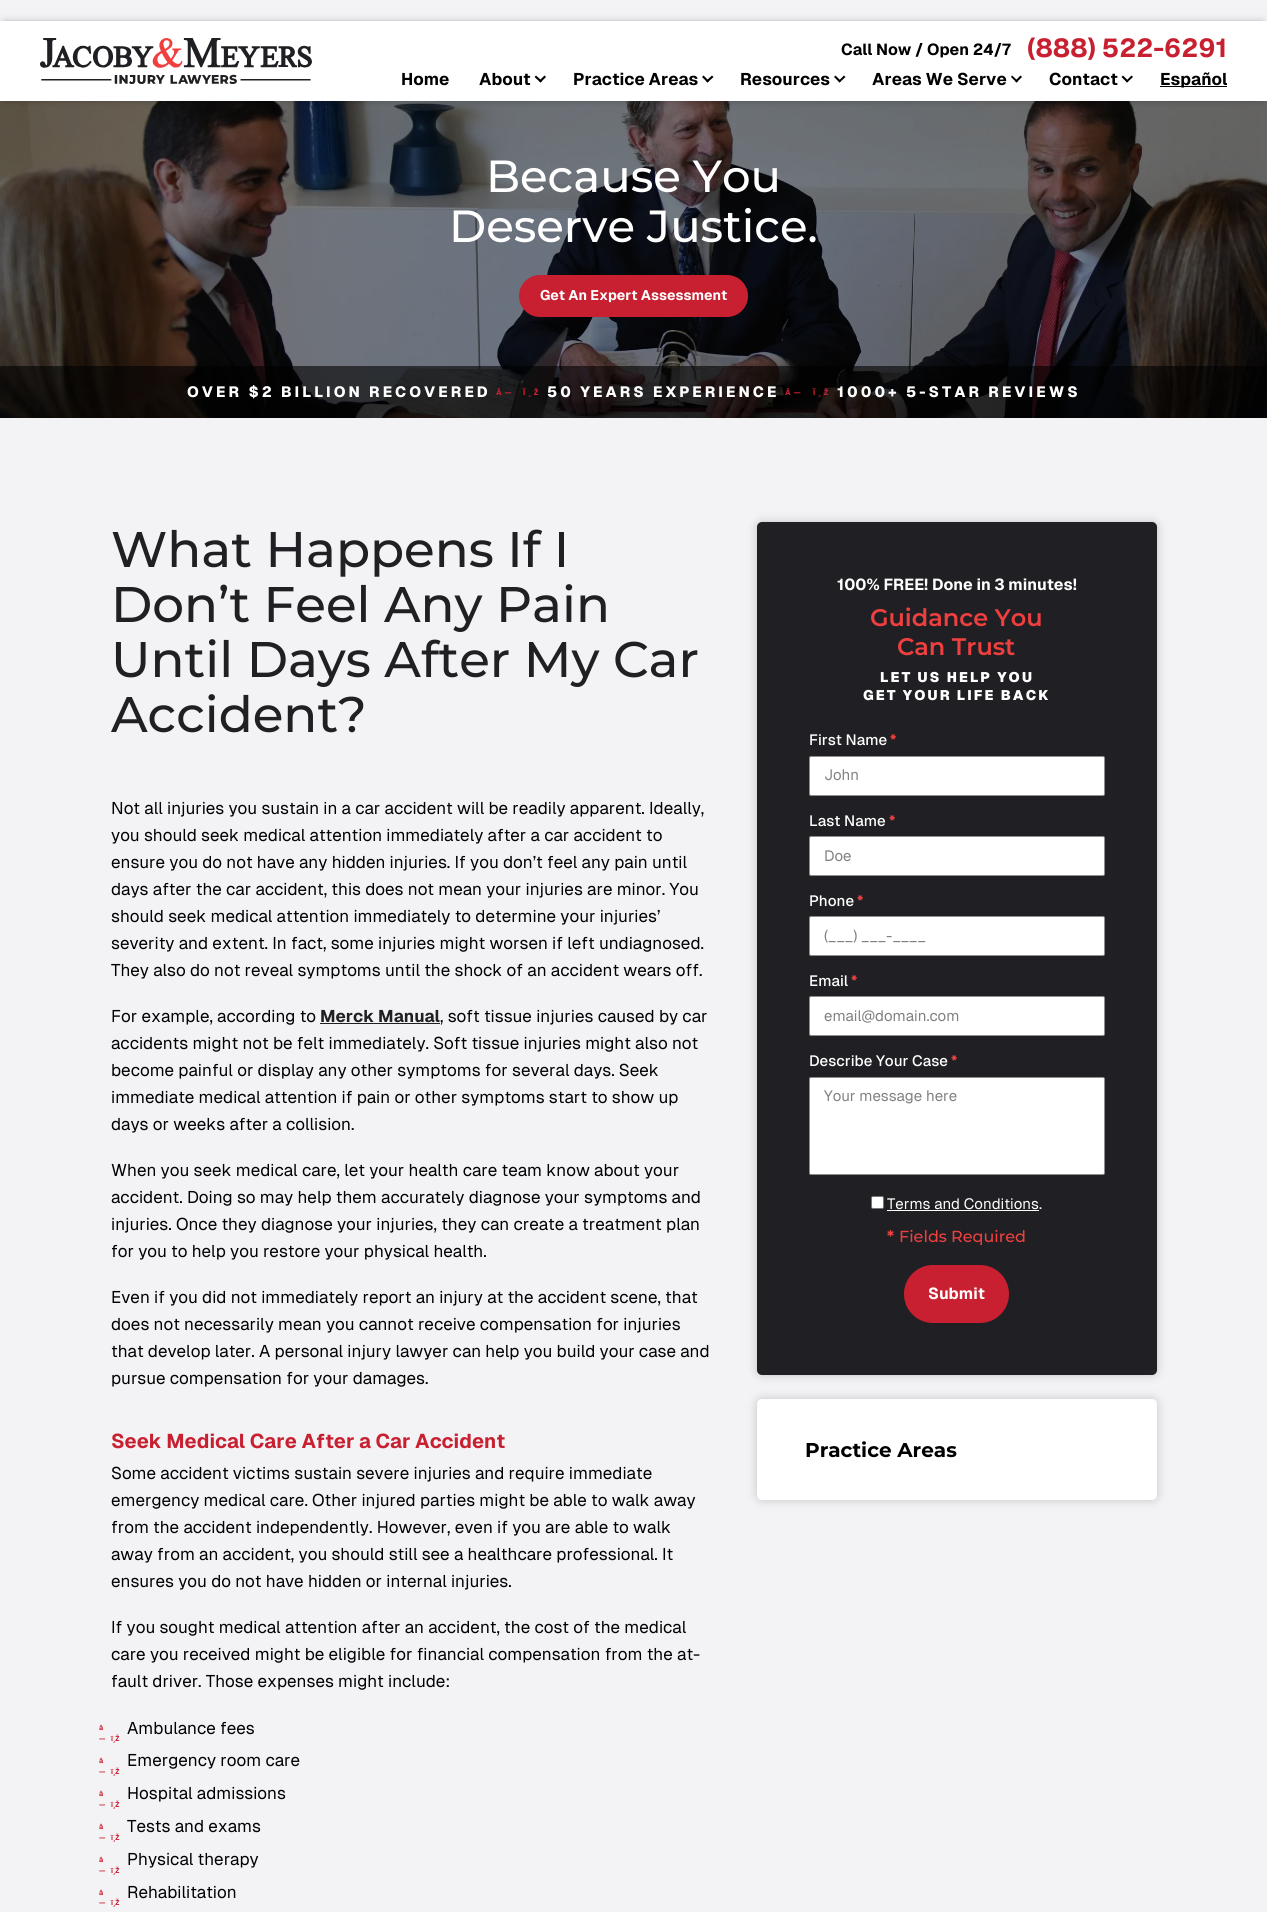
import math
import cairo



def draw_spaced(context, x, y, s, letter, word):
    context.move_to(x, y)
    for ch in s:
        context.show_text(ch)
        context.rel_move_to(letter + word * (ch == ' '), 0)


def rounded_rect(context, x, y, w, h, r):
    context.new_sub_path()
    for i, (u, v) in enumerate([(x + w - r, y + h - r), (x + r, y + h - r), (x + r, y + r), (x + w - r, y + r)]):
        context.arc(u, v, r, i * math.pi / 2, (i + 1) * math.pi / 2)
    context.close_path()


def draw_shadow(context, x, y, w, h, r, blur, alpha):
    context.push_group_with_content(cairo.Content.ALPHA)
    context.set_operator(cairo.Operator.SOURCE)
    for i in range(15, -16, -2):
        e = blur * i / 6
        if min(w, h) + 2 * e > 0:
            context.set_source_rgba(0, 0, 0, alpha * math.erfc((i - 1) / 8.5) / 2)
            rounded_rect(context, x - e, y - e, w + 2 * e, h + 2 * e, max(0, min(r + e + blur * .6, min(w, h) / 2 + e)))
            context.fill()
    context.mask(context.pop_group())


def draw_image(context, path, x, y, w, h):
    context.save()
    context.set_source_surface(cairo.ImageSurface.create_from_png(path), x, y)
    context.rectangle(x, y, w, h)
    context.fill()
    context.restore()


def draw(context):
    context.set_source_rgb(243 / 255, 243 / 255, 246 / 255)
    context.paint()
    draw_image(context, "images/2.png", 0, 101, 1267, 317)
    context.set_source_rgb(0, 0, 0)
    draw_shadow(context, 5, 26, 1257, 70, 0, 5, 0.8)
    context.set_source_rgb(1, 1, 1)
    context.rectangle(0, 21, 1267, 80)
    context.fill()
    draw_image(context, "images/1.png", 40, 38, 272, 46)
    context.set_source_rgb(0, 0, 0)
    context.new_path()
    context.move_to(544.5, 75.5)
    context.line_to(546, 77)
    context.line_to(540.5, 82.5)
    context.line_to(539, 81)
    context.close_path()
    context.fill()
    context.new_path()
    context.move_to(536, 75.5)
    context.line_to(542, 81)
    context.line_to(540.5, 82.5)
    context.line_to(534.5, 77)
    context.close_path()
    context.fill()
    context.new_path()
    context.move_to(712, 75.5)
    context.line_to(713.5, 77)
    context.line_to(707.5, 82.5)
    context.line_to(706, 81)
    context.close_path()
    context.fill()
    context.new_path()
    context.move_to(703.5, 75.5)
    context.line_to(709, 81)
    context.line_to(707.5, 82.5)
    context.line_to(702, 77)
    context.close_path()
    context.fill()
    context.new_path()
    context.move_to(844, 75.5)
    context.line_to(845.5, 77)
    context.line_to(839.5, 82.5)
    context.line_to(838.5, 81)
    context.close_path()
    context.fill()
    context.new_path()
    context.move_to(835.5, 75.5)
    context.line_to(841, 81)
    context.line_to(839.5, 82.5)
    context.line_to(834, 77)
    context.close_path()
    context.fill()
    context.new_path()
    context.move_to(1020.5, 75.5)
    context.line_to(1022, 77)
    context.line_to(1016.5, 82.5)
    context.line_to(1015, 81)
    context.close_path()
    context.fill()
    context.new_path()
    context.move_to(1012, 75.5)
    context.line_to(1018, 81)
    context.line_to(1016.5, 82.5)
    context.line_to(1011, 77)
    context.close_path()
    context.fill()
    context.new_path()
    context.move_to(1131.5, 75.5)
    context.line_to(1133, 77)
    context.line_to(1127, 82.5)
    context.line_to(1126, 81)
    context.close_path()
    context.fill()
    context.new_path()
    context.move_to(1123, 75.5)
    context.line_to(1128.5, 81)
    context.line_to(1127, 82.5)
    context.line_to(1121.5, 77)
    context.close_path()
    context.fill()
    context.rectangle(1160, 86, 67, 1)
    context.fill()
    context.set_source_rgb(200 / 255, 32 / 255, 48 / 255)
    rounded_rect(context, 519, 275, 229, 42, 21)
    context.fill()
    context.set_source_rgba(0, 0, 0, 0.6)
    context.rectangle(0, 366, 1267, 52)
    context.fill()
    context.set_source_rgb(32 / 255, 32 / 255, 36 / 255)
    context.rectangle(320, 1023, 120, 1)
    context.fill()
    context.set_source_rgb(0, 0, 0)
    draw_shadow(context, 757, 522, 400, 853, 5, 5, 0.2)
    context.set_source_rgb(32 / 255, 32 / 255, 36 / 255)
    rounded_rect(context, 757, 522, 400, 853, 5)
    context.fill()
    context.set_source_rgb(1, 1, 1)
    rounded_rect(context, 809.5, 756.5, 295, 39, 1.5)
    context.fill_preserve()
    context.set_source_rgb(142 / 255, 141 / 255, 141 / 255)
    context.set_line_width(1)
    context.stroke()
    context.set_source_rgb(1, 1, 1)
    rounded_rect(context, 809.5, 836.5, 295, 39, 1.5)
    context.fill_preserve()
    context.set_source_rgb(142 / 255, 141 / 255, 141 / 255)
    context.stroke()
    context.set_source_rgb(1, 1, 1)
    rounded_rect(context, 809.5, 916.5, 295, 39, 1.5)
    context.fill_preserve()
    context.set_source_rgb(142 / 255, 141 / 255, 141 / 255)
    context.stroke()
    context.set_source_rgb(1, 1, 1)
    rounded_rect(context, 809.5, 996.5, 295, 39, 1.5)
    context.fill_preserve()
    context.set_source_rgb(142 / 255, 141 / 255, 141 / 255)
    context.stroke()
    context.set_source_rgb(1, 1, 1)
    rounded_rect(context, 809.5, 1077.5, 295, 97, 1.5)
    context.fill_preserve()
    context.set_source_rgb(142 / 255, 141 / 255, 141 / 255)
    context.stroke()
    context.set_source_rgb(1, 1, 1)
    rounded_rect(context, 871.5, 1196.5, 12, 12, 1.5)
    context.fill_preserve()
    context.set_source_rgb(118 / 255, 118 / 255, 118 / 255)
    context.stroke()
    context.set_source_rgb(1, 1, 1)
    context.rectangle(887, 1210, 152, 1)
    context.fill()
    context.set_source_rgb(200 / 255, 32 / 255, 48 / 255)
    rounded_rect(context, 904, 1265, 105, 58, 29)
    context.fill()
    context.set_source_rgb(0, 0, 0)
    draw_shadow(context, 757, 1399, 400, 101, 5, 5, 0.2)
    context.set_source_rgb(1, 1, 1)
    rounded_rect(context, 757, 1399, 400, 101, 5)
    context.fill()
    context.select_font_face("Geist", cairo.FontSlant.NORMAL, cairo.FontWeight.BOLD)
    context.set_font_size(16)
    context.set_source_rgb(0, 0, 0)
    context.move_to(841, 55)
    context.show_text("Call Now / Open 24/7")
    context.set_font_size(26)
    context.set_source_rgb(200 / 255, 32 / 255, 48 / 255)
    context.move_to(1027, 57)
    context.show_text("(888) 522-6291")
    context.set_font_size(17)
    context.set_source_rgb(0, 0, 0)
    context.move_to(401, 85)
    context.show_text("Home")
    context.move_to(479, 85)
    context.show_text("About")
    context.move_to(573, 85)
    context.show_text("Practice Areas")
    context.move_to(740, 85)
    context.show_text("Resources")
    context.move_to(872, 85)
    context.show_text("Areas We Serve")
    context.move_to(1049, 85)
    context.show_text("Contact")
    context.move_to(1160, 85)
    context.show_text("Español")
    context.select_font_face("Montserrat Medium")
    context.set_font_size(45)
    context.set_source_rgb(1, 1, 1)
    context.move_to(486, 192)
    context.show_text("Because You")
    context.move_to(449, 242)
    context.show_text("Deserve Justice.")
    context.select_font_face("Geist", cairo.FontSlant.NORMAL, cairo.FontWeight.BOLD)
    context.set_font_size(14)
    context.move_to(540, 300)
    context.show_text("Get An Expert Assessment")
    context.select_font_face("Geist ExtraBold")
    context.set_font_size(15)
    draw_spaced(context, 187, 397, "OVER $2 BILLION RECOVERED", 3, 0)
    context.set_font_size(7.5)
    context.set_source_rgb(200 / 255, 32 / 255, 48 / 255)
    draw_spaced(context, 496, 395, "Â—", 3, 0)
    draw_spaced(context, 523, 395, "Ï¸Ž", 3, 0)
    context.set_font_size(15)
    context.set_source_rgb(1, 1, 1)
    draw_spaced(context, 547, 397, "50 YEARS EXPERIENCE", 3, 0)
    context.set_font_size(7.5)
    context.set_source_rgb(200 / 255, 32 / 255, 48 / 255)
    draw_spaced(context, 785, 395, "Â—", 3, 0)
    draw_spaced(context, 813, 395, "Ï¸Ž", 3, 0)
    context.set_font_size(15)
    context.set_source_rgb(1, 1, 1)
    draw_spaced(context, 837, 397, "1000+ 5-STAR REVIEWS", 3, 0)
    context.select_font_face("Montserrat Medium")
    context.set_font_size(50)
    context.set_source_rgb(32 / 255, 32 / 255, 36 / 255)
    context.move_to(111, 567)
    context.show_text("What Happens If I")
    context.move_to(111, 622)
    context.show_text("Don’t Feel Any Pain")
    context.move_to(111, 677)
    context.show_text("Until Days After My Car")
    context.move_to(111, 732)
    context.show_text("Accident?")
    context.select_font_face("Geist")
    context.set_font_size(17)
    context.set_source_rgb(0, 0, 0)
    context.move_to(111, 814)
    context.show_text("Not all injuries you sustain in a car accident will be readily apparent. Ideally,")
    context.move_to(111, 841)
    context.show_text("you should seek medical attention immediately after a car accident to")
    context.move_to(111, 868)
    context.show_text("ensure you do not have any hidden injuries. If you don’t feel any pain until")
    context.move_to(111, 895)
    context.show_text("days after the car accident, this does not mean your injuries are minor. You")
    context.move_to(111, 922)
    context.show_text("should seek medical attention immediately to determine your injuries’")
    context.move_to(111, 949)
    context.show_text("severity and extent. In fact, some injuries might worsen if left undiagnosed.")
    context.move_to(111, 976)
    context.show_text("They also do not reveal symptoms until the shock of an accident wears off.")
    context.move_to(111, 1022)
    context.show_text("For example, according to")
    context.select_font_face("Geist", cairo.FontSlant.NORMAL, cairo.FontWeight.BOLD)
    context.set_source_rgb(32 / 255, 32 / 255, 36 / 255)
    context.move_to(320, 1022)
    context.show_text("Merck Manual")
    context.select_font_face("Geist")
    context.set_source_rgb(0, 0, 0)
    context.move_to(440, 1022)
    context.show_text(", soft tissue injuries caused by car")
    context.move_to(111, 1049)
    context.show_text("accidents might not be felt immediately. Soft tissue injuries might also not")
    context.move_to(111, 1076)
    context.show_text("become painful or display any other symptoms for several days. Seek")
    context.move_to(111, 1103)
    context.show_text("immediate medical attention if pain or other symptoms start to show up")
    context.move_to(111, 1130)
    context.show_text("days or weeks after a collision.")
    context.move_to(111, 1176)
    context.show_text("When you seek medical care, let your health care team know about your")
    context.move_to(111, 1203)
    context.show_text("accident. Doing so may help them accurately diagnose your symptoms and")
    context.move_to(111, 1230)
    context.show_text("injuries. Once they diagnose your injuries, they can create a treatment plan")
    context.move_to(111, 1257)
    context.show_text("for you to help you restore your physical health.")
    context.move_to(111, 1303)
    context.show_text("Even if you did not immediately report an injury at the accident scene, that")
    context.move_to(111, 1330)
    context.show_text("does not necessarily mean you cannot receive compensation for injuries")
    context.move_to(111, 1357)
    context.show_text("that develop later. A personal injury lawyer can help you build your case and")
    context.move_to(111, 1384)
    context.show_text("pursue compensation for your damages.")
    context.select_font_face("Geist", cairo.FontSlant.NORMAL, cairo.FontWeight.BOLD)
    context.set_font_size(20)
    context.set_source_rgb(200 / 255, 32 / 255, 48 / 255)
    context.move_to(111, 1448)
    context.show_text("Seek Medical Care After a Car Accident")
    context.select_font_face("Geist")
    context.set_font_size(17)
    context.set_source_rgb(0, 0, 0)
    context.move_to(111, 1479)
    context.show_text("Some accident victims sustain severe injuries and require immediate")
    context.move_to(111, 1506)
    context.show_text("emergency medical care. Other injured parties might be able to walk away")
    context.move_to(111, 1533)
    context.show_text("from the accident independently. However, even if you are able to walk")
    context.move_to(111, 1560)
    context.show_text("away from an accident, you should still see a healthcare professional. It")
    context.move_to(111, 1587)
    context.show_text("ensures you do not have hidden or internal injuries.")
    context.move_to(111, 1633)
    context.show_text("If you sought medical attention after an accident, the cost of the medical")
    context.move_to(111, 1660)
    context.show_text("care you received might be eligible for financial compensation from the at-")
    context.move_to(111, 1687)
    context.show_text("fault driver. Those expenses might include:")
    context.select_font_face("Geist", cairo.FontSlant.NORMAL, cairo.FontWeight.BOLD)
    context.set_font_size(7)
    context.set_source_rgb(200 / 255, 32 / 255, 48 / 255)
    context.move_to(99, 1730)
    context.show_text("â")
    context.move_to(99, 1741)
    context.show_text("—")
    context.move_to(111, 1741)
    context.show_text("ï¸Ž")
    context.select_font_face("Geist")
    context.set_font_size(17)
    context.set_source_rgb(0, 0, 0)
    context.move_to(127, 1734)
    context.show_text("Ambulance fees")
    context.select_font_face("Geist", cairo.FontSlant.NORMAL, cairo.FontWeight.BOLD)
    context.set_font_size(7)
    context.set_source_rgb(200 / 255, 32 / 255, 48 / 255)
    context.move_to(99, 1763)
    context.show_text("â")
    context.move_to(99, 1774)
    context.show_text("—")
    context.move_to(111, 1774)
    context.show_text("ï¸Ž")
    context.select_font_face("Geist")
    context.set_font_size(17)
    context.set_source_rgb(0, 0, 0)
    context.move_to(127, 1766)
    context.show_text("Emergency room care")
    context.select_font_face("Geist", cairo.FontSlant.NORMAL, cairo.FontWeight.BOLD)
    context.set_font_size(7)
    context.set_source_rgb(200 / 255, 32 / 255, 48 / 255)
    context.move_to(99, 1796)
    context.show_text("â")
    context.move_to(99, 1807)
    context.show_text("—")
    context.move_to(111, 1807)
    context.show_text("ï¸Ž")
    context.select_font_face("Geist")
    context.set_font_size(17)
    context.set_source_rgb(0, 0, 0)
    context.move_to(127, 1799)
    context.show_text("Hospital admissions")
    context.select_font_face("Geist", cairo.FontSlant.NORMAL, cairo.FontWeight.BOLD)
    context.set_font_size(7)
    context.set_source_rgb(200 / 255, 32 / 255, 48 / 255)
    context.move_to(99, 1829)
    context.show_text("â")
    context.move_to(99, 1840)
    context.show_text("—")
    context.move_to(111, 1840)
    context.show_text("ï¸Ž")
    context.select_font_face("Geist")
    context.set_font_size(17)
    context.set_source_rgb(0, 0, 0)
    context.move_to(127, 1832)
    context.show_text("Tests and exams")
    context.select_font_face("Geist", cairo.FontSlant.NORMAL, cairo.FontWeight.BOLD)
    context.set_font_size(7)
    context.set_source_rgb(200 / 255, 32 / 255, 48 / 255)
    context.move_to(99, 1862)
    context.show_text("â")
    context.move_to(99, 1873)
    context.show_text("—")
    context.move_to(111, 1873)
    context.show_text("ï¸Ž")
    context.select_font_face("Geist")
    context.set_font_size(17)
    context.set_source_rgb(0, 0, 0)
    context.move_to(127, 1865)
    context.show_text("Physical therapy")
    context.select_font_face("Geist", cairo.FontSlant.NORMAL, cairo.FontWeight.BOLD)
    context.set_font_size(7)
    context.set_source_rgb(200 / 255, 32 / 255, 48 / 255)
    context.move_to(99, 1895)
    context.show_text("â")
    context.move_to(99, 1905)
    context.show_text("—")
    context.move_to(111, 1905)
    context.show_text("ï¸Ž")
    context.select_font_face("Geist")
    context.set_font_size(17)
    context.set_source_rgb(0, 0, 0)
    context.move_to(127, 1898)
    context.show_text("Rehabilitation")
    context.select_font_face("Geist", cairo.FontSlant.NORMAL, cairo.FontWeight.BOLD)
    context.set_font_size(16)
    context.set_source_rgb(1, 1, 1)
    context.move_to(837, 590)
    context.show_text("100% FREE! Done in 3 minutes!")
    context.select_font_face("Montserrat SemiBold")
    context.set_font_size(24)
    context.set_source_rgb(239 / 255, 63 / 255, 63 / 255)
    context.move_to(870, 626)
    context.show_text("Guidance You")
    context.move_to(897, 655)
    context.show_text("Can Trust")
    context.select_font_face("Geist Black")
    context.set_font_size(14)
    context.set_source_rgb(1, 1, 1)
    draw_spaced(context, 880, 682, "LET US HELP YOU", 2.1, 0)
    draw_spaced(context, 863, 700, "GET YOUR LIFE BACK", 2.1, 0)
    context.select_font_face("Geist Medium")
    context.set_font_size(15)
    context.move_to(809, 745)
    context.show_text("First Name")
    context.select_font_face("Geist", cairo.FontSlant.NORMAL, cairo.FontWeight.BOLD)
    context.set_source_rgb(239 / 255, 63 / 255, 63 / 255)
    context.move_to(890, 745)
    context.show_text("*")
    context.select_font_face("Geist")
    context.set_source_rgb(128 / 255, 128 / 255, 128 / 255)
    context.move_to(824, 780)
    context.show_text("John")
    context.select_font_face("Geist Medium")
    context.set_source_rgb(1, 1, 1)
    context.move_to(809, 826)
    context.show_text("Last Name")
    context.select_font_face("Geist", cairo.FontSlant.NORMAL, cairo.FontWeight.BOLD)
    context.set_source_rgb(239 / 255, 63 / 255, 63 / 255)
    context.move_to(889, 826)
    context.show_text("*")
    context.select_font_face("Geist")
    context.set_source_rgb(128 / 255, 128 / 255, 128 / 255)
    context.move_to(824, 861)
    context.show_text("Doe")
    context.select_font_face("Geist Medium")
    context.set_source_rgb(1, 1, 1)
    context.move_to(809, 906)
    context.show_text("Phone")
    context.select_font_face("Geist", cairo.FontSlant.NORMAL, cairo.FontWeight.BOLD)
    context.set_source_rgb(239 / 255, 63 / 255, 63 / 255)
    context.move_to(857, 906)
    context.show_text("*")
    context.select_font_face("Geist")
    context.set_source_rgb(128 / 255, 128 / 255, 128 / 255)
    context.move_to(824, 941)
    context.show_text("(___) ___-____")
    context.select_font_face("Geist Medium")
    context.set_source_rgb(1, 1, 1)
    context.move_to(809, 986)
    context.show_text("Email")
    context.select_font_face("Geist", cairo.FontSlant.NORMAL, cairo.FontWeight.BOLD)
    context.set_source_rgb(239 / 255, 63 / 255, 63 / 255)
    context.move_to(851, 986)
    context.show_text("*")
    context.select_font_face("Geist")
    context.set_source_rgb(128 / 255, 128 / 255, 128 / 255)
    context.move_to(824, 1021)
    context.show_text("email@domain.com")
    context.select_font_face("Geist Medium")
    context.set_source_rgb(1, 1, 1)
    context.move_to(809, 1066)
    context.show_text("Describe Your Case")
    context.select_font_face("Geist", cairo.FontSlant.NORMAL, cairo.FontWeight.BOLD)
    context.set_source_rgb(239 / 255, 63 / 255, 63 / 255)
    context.move_to(951, 1066)
    context.show_text("*")
    context.select_font_face("Geist")
    context.set_source_rgb(128 / 255, 128 / 255, 128 / 255)
    context.move_to(824, 1101)
    context.show_text("Your message here")
    context.set_source_rgb(1, 1, 1)
    context.move_to(887, 1209)
    context.show_text("Terms and Conditions.")
    context.select_font_face("Montserrat", cairo.FontSlant.NORMAL, cairo.FontWeight.BOLD)
    context.set_font_size(16)
    context.set_source_rgb(239 / 255, 63 / 255, 63 / 255)
    context.move_to(887, 1242)
    context.show_text("*")
    context.select_font_face("Montserrat Medium")
    context.move_to(899, 1242)
    context.show_text("Fields Required")
    context.select_font_face("Geist", cairo.FontSlant.NORMAL, cairo.FontWeight.BOLD)
    context.set_source_rgb(1, 1, 1)
    context.move_to(928, 1299)
    context.show_text("Submit")
    context.select_font_face("Montserrat", cairo.FontSlant.NORMAL, cairo.FontWeight.BOLD)
    context.set_font_size(20)
    context.set_source_rgb(0, 0, 0)
    context.move_to(805, 1457)
    context.show_text("Practice Areas")


surface = cairo.ImageSurface(cairo.Format.RGB24, 1267, 1912)
context = cairo.Context(surface)
options = cairo.FontOptions()
options.set_hint_metrics(cairo.HintMetrics.OFF)
options.set_hint_style(cairo.HintStyle.NONE)
context.set_font_options(options)
context.set_miter_limit(4)
draw(context)
surface.write_to_png("out.png")
